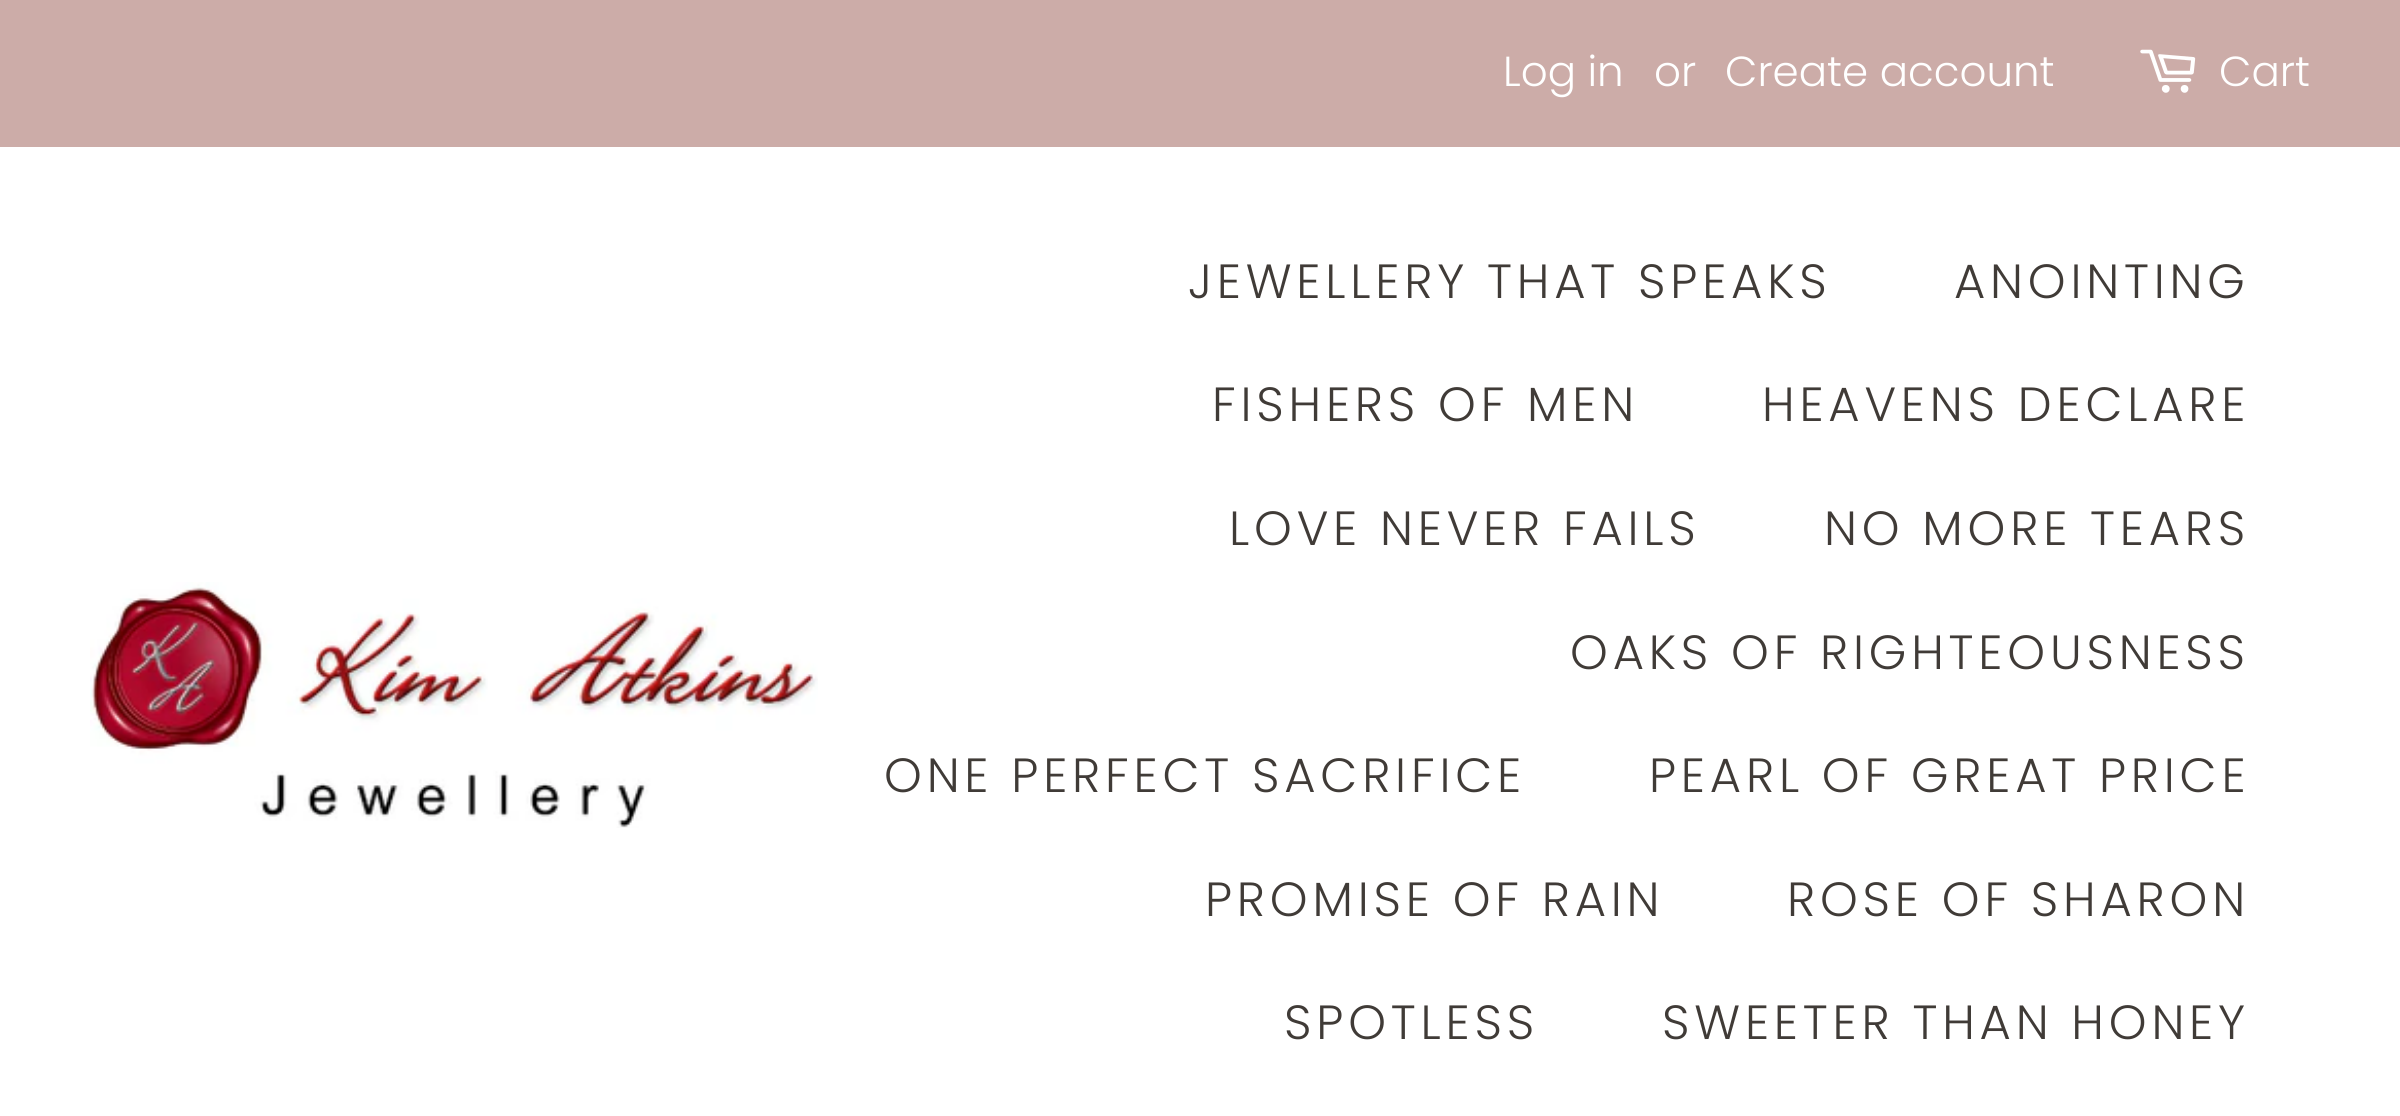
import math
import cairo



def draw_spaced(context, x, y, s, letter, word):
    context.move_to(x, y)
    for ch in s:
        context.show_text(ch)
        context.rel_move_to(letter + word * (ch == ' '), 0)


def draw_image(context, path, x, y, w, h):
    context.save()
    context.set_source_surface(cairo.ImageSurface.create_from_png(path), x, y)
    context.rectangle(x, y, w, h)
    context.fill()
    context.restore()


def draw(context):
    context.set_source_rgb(1, 1, 1)
    context.paint()
    context.set_source_rgb(204 / 255, 172 / 255, 168 / 255)
    context.rectangle(0, 0, 2400, 147)
    context.fill()
    draw_image(context, "images/1.png", 2140, 49, 56, 44)
    draw_image(context, "images/2.png", 90, 582, 728, 246)
    context.select_font_face("Poppins Light")
    context.set_font_size(42)
    context.set_source_rgb(1, 1, 1)
    context.move_to(1503, 86)
    context.show_text("Log in")
    context.move_to(1654, 86)
    context.show_text("or")
    context.move_to(1725, 86)
    context.show_text("Create account")
    context.move_to(2219, 86)
    context.show_text("Cart")
    context.set_font_size(48)
    context.set_source_rgb(64 / 255, 59 / 255, 55 / 255)
    draw_spaced(context, 1188, 298, "JEWELLERY THAT SPEAKS", 4.8, 0)
    draw_spaced(context, 1954, 298, "ANOINTING", 4.8, 0)
    draw_spaced(context, 1212, 421, "FISHERS OF MEN", 4.8, 0)
    draw_spaced(context, 1762, 421, "HEAVENS DECLARE", 4.8, 0)
    draw_spaced(context, 1229, 545, "LOVE NEVER FAILS", 4.8, 0)
    draw_spaced(context, 1824, 545, "NO MORE TEARS", 4.8, 0)
    draw_spaced(context, 1570, 669, "OAKS OF RIGHTEOUSNESS", 4.8, 0)
    draw_spaced(context, 884, 792, "ONE PERFECT SACRIFICE", 4.8, 0)
    draw_spaced(context, 1649, 792, "PEARL OF GREAT PRICE", 4.8, 0)
    draw_spaced(context, 1205, 916, "PROMISE OF RAIN", 4.8, 0)
    draw_spaced(context, 1787, 916, "ROSE OF SHARON", 4.8, 0)
    draw_spaced(context, 1284, 1039, "SPOTLESS", 4.8, 0)
    draw_spaced(context, 1662, 1039, "SWEETER THAN HONEY", 4.8, 0)


surface = cairo.ImageSurface(cairo.Format.RGB24, 2400, 1116)
context = cairo.Context(surface)
options = cairo.FontOptions()
options.set_hint_metrics(cairo.HintMetrics.OFF)
options.set_hint_style(cairo.HintStyle.NONE)
context.set_font_options(options)
context.set_miter_limit(4)
draw(context)
surface.write_to_png("out.png")
